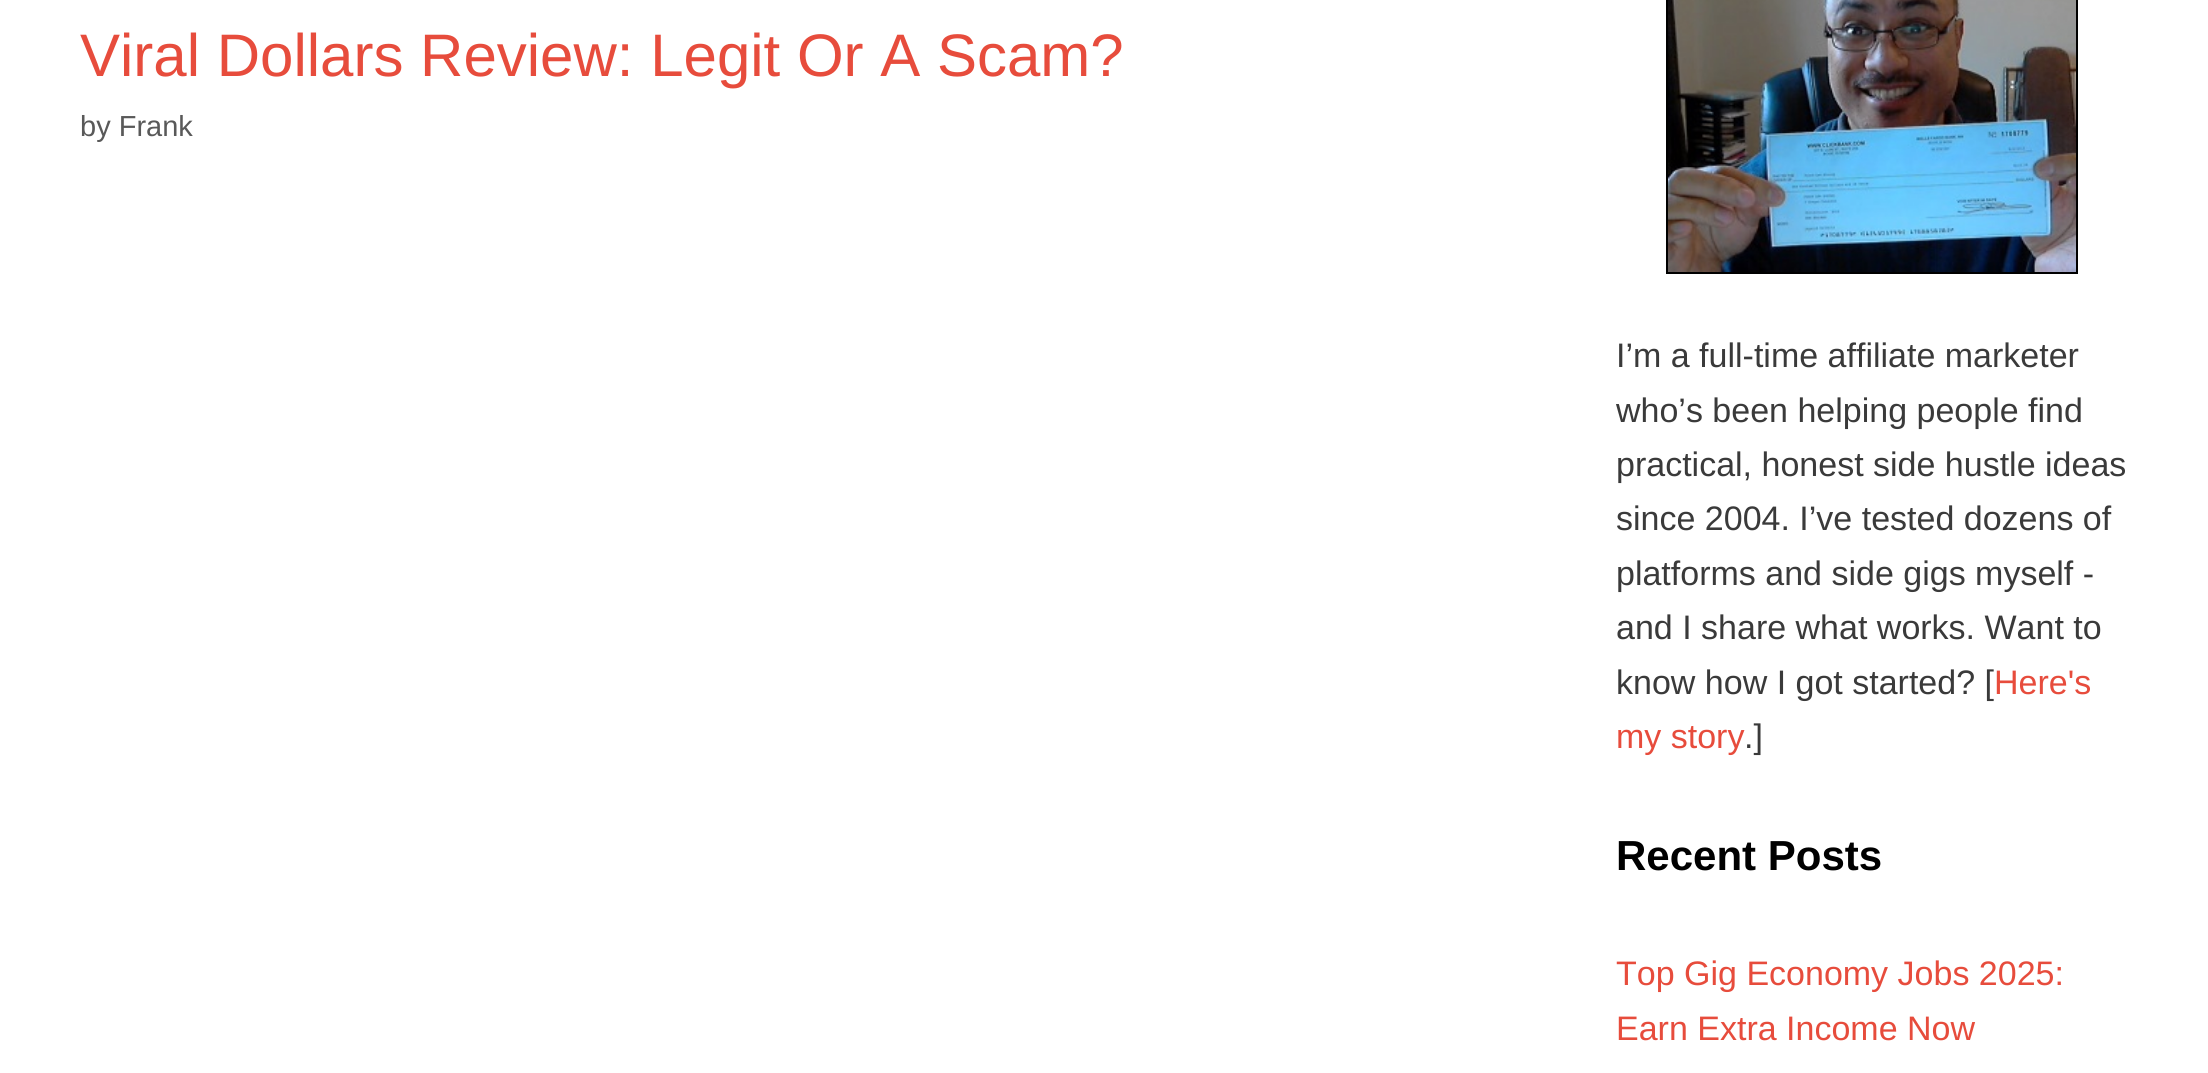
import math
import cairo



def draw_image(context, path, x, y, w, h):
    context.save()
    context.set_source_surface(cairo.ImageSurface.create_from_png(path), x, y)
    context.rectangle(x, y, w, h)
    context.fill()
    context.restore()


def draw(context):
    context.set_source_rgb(1, 1, 1)
    context.paint()
    context.rectangle(1667, -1, 410, 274)
    context.set_source_rgb(0, 0, 0)
    context.stroke()
    draw_image(context, "images/1.png", 1668, 0, 408, 272)
    context.select_font_face("Liberation Sans")
    context.set_font_size(60)
    context.set_source_rgb(231 / 255, 76 / 255, 60 / 255)
    context.move_to(80, 76)
    context.show_text("Viral Dollars Review: Legit Or A Scam?")
    context.set_font_size(29)
    context.set_source_rgb(89 / 255, 89 / 255, 89 / 255)
    context.move_to(80, 136)
    context.show_text("by Frank")
    context.set_font_size(34)
    context.set_source_rgb(58 / 255, 58 / 255, 58 / 255)
    context.move_to(1616, 367)
    context.show_text("I’m a full-time affiliate marketer")
    context.move_to(1616, 422)
    context.show_text("who’s been helping people find")
    context.move_to(1616, 476)
    context.show_text("practical, honest side hustle ideas")
    context.move_to(1616, 530)
    context.show_text("since 2004. I’ve tested dozens of")
    context.move_to(1616, 585)
    context.show_text("platforms and side gigs myself -")
    context.move_to(1616, 639)
    context.show_text("and I share what works. Want to")
    context.move_to(1616, 694)
    context.show_text("know how I got started? [")
    context.set_source_rgb(231 / 255, 76 / 255, 60 / 255)
    context.move_to(1994, 694)
    context.show_text("Here's")
    context.move_to(1616, 748)
    context.show_text("my story")
    context.set_source_rgb(58 / 255, 58 / 255, 58 / 255)
    context.move_to(1744, 748)
    context.show_text(".]")
    context.select_font_face("Liberation Sans", cairo.FontSlant.NORMAL, cairo.FontWeight.BOLD)
    context.set_font_size(42)
    context.set_source_rgb(0, 0, 0)
    context.move_to(1616, 870)
    context.show_text("Recent Posts")
    context.select_font_face("Liberation Sans")
    context.set_font_size(34)
    context.set_source_rgb(231 / 255, 76 / 255, 60 / 255)
    context.move_to(1616, 985)
    context.show_text("Top Gig Economy Jobs 2025:")
    context.move_to(1616, 1040)
    context.show_text("Earn Extra Income Now")


surface = cairo.ImageSurface(cairo.Format.RGB24, 2208, 1073)
context = cairo.Context(surface)
options = cairo.FontOptions()
options.set_hint_metrics(cairo.HintMetrics.OFF)
options.set_hint_style(cairo.HintStyle.NONE)
context.set_font_options(options)
context.set_miter_limit(4)
draw(context)
surface.write_to_png("out.png")
